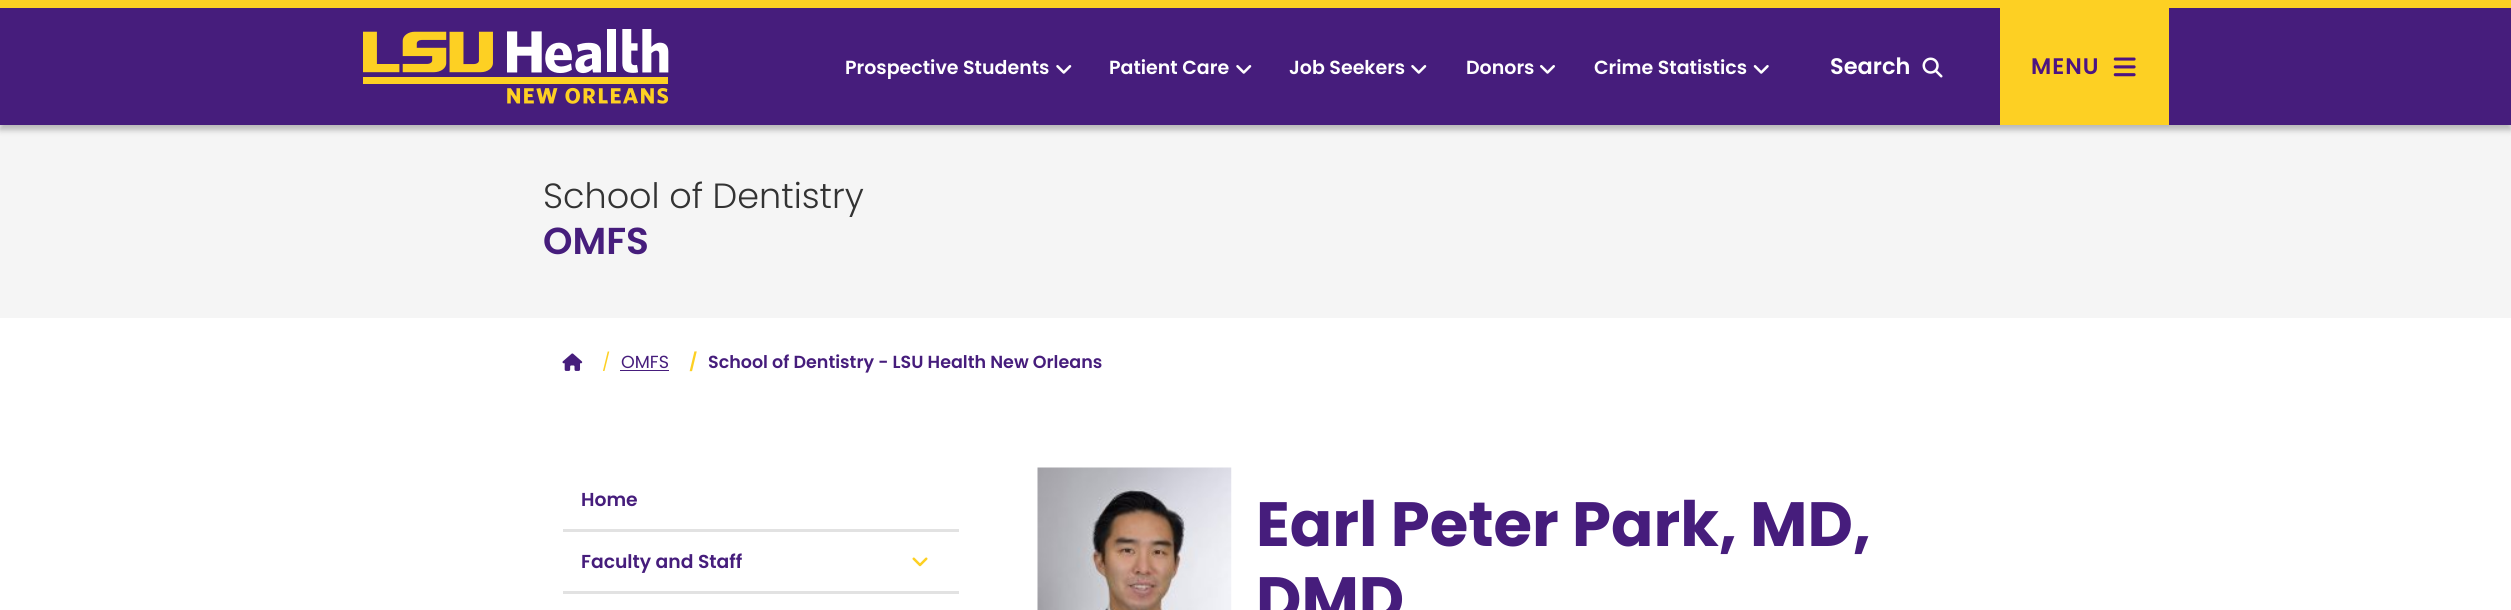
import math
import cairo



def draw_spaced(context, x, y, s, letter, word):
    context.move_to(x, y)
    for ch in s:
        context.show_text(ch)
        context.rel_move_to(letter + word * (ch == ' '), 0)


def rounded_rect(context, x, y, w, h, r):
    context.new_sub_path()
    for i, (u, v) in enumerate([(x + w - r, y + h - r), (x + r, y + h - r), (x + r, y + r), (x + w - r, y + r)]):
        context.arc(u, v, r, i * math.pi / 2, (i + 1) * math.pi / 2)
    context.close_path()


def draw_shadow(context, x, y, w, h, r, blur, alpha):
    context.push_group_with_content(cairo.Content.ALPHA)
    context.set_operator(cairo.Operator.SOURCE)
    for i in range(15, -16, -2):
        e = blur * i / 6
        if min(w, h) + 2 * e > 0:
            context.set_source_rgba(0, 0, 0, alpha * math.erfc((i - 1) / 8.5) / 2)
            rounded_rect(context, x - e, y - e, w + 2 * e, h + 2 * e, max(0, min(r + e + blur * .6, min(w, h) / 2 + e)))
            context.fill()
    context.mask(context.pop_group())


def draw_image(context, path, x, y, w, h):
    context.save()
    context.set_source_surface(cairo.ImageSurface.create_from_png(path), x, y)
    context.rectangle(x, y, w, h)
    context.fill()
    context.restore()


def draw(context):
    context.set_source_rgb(1, 1, 1)
    context.paint()
    context.set_source_rgb(245 / 255, 245 / 255, 245 / 255)
    context.rectangle(0, 125, 2511, 193)
    context.fill()
    context.set_source_rgb(0, 0, 0)
    draw_shadow(context, 0, 5, 2511, 125, 0, 3, 0.25)
    context.set_source_rgb(70 / 255, 29 / 255, 124 / 255)
    context.rectangle(0, 8, 2511, 117)
    context.fill()
    context.set_source_rgb(253 / 255, 208 / 255, 35 / 255)
    context.rectangle(0, 0, 2511, 8)
    context.fill()
    draw_image(context, "images/1.png", 363, 29, 306, 75)
    draw_image(context, "images/2.png", 1056, 65, 16, 9)
    draw_image(context, "images/2.png", 1236, 65, 16, 9)
    draw_image(context, "images/2.png", 1411, 65, 16, 9)
    draw_image(context, "images/3.png", 1540, 65, 15, 9)
    draw_image(context, "images/4.png", 1753, 65, 16, 9)
    draw_image(context, "images/5.png", 1922, 57, 21, 21)
    context.rectangle(2000, 8, 169, 117)
    context.fill()
    draw_image(context, "images/6.png", 2113, 57, 23, 20)
    draw_image(context, "images/7.png", 562, 353, 21, 18)
    context.set_source_rgb(70 / 255, 29 / 255, 124 / 255)
    context.rectangle(620, 370, 49, 1)
    context.fill()
    context.set_source_rgb(226 / 255, 226 / 255, 226 / 255)
    context.rectangle(563, 529, 396, 3)
    context.fill()
    context.rectangle(563, 591, 396, 3)
    context.fill()
    draw_image(context, "images/8.png", 912, 557, 16, 10)
    draw_image(context, "images/9.png", 1037, 467, 195, 143)
    context.select_font_face("Poppins SemiBold")
    context.set_font_size(19)
    context.set_source_rgb(1, 1, 1)
    context.move_to(845, 74)
    context.show_text("Prospective Students")
    context.move_to(1109, 74)
    context.show_text("Patient Care")
    context.move_to(1289, 74)
    context.show_text("Job Seekers")
    context.move_to(1466, 74)
    context.show_text("Donors")
    context.move_to(1594, 74)
    context.show_text("Crime Statistics")
    context.set_font_size(22.5)
    context.move_to(1830, 74)
    context.show_text("Search")
    context.set_source_rgb(77 / 255, 20 / 255, 129 / 255)
    draw_spaced(context, 2031, 74, "MENU", 1, 0)
    context.select_font_face("Poppins Light")
    context.set_font_size(35)
    context.set_source_rgb(51 / 255, 51 / 255, 51 / 255)
    context.move_to(543, 208)
    context.show_text("School of Dentistry")
    context.select_font_face("Poppins SemiBold")
    context.set_font_size(37.5)
    context.set_source_rgb(70 / 255, 29 / 255, 124 / 255)
    context.move_to(543, 254)
    context.show_text("OMFS")
    context.select_font_face("Poppins")
    context.set_font_size(17.5)
    context.set_source_rgb(253 / 255, 208 / 255, 35 / 255)
    context.move_to(602, 368)
    context.show_text("/")
    context.set_source_rgb(70 / 255, 29 / 255, 124 / 255)
    context.move_to(621, 368)
    context.show_text("OMFS")
    context.select_font_face("Poppins SemiBold")
    context.set_source_rgb(253 / 255, 208 / 255, 35 / 255)
    context.move_to(689, 368)
    context.show_text("/")
    context.set_source_rgb(70 / 255, 29 / 255, 124 / 255)
    context.move_to(708, 368)
    context.show_text("School of Dentistry - LSU Health New Orleans")
    context.set_font_size(18.75)
    context.move_to(581, 506)
    context.show_text("Home")
    context.move_to(581, 568)
    context.show_text("Faculty and Staff")
    context.select_font_face("Poppins", cairo.FontSlant.NORMAL, cairo.FontWeight.BOLD)
    context.set_font_size(62.5)
    context.move_to(1256, 546)
    context.show_text("Earl Peter Park, MD,")
    context.move_to(1256, 621)
    context.show_text("DMD")


surface = cairo.ImageSurface(cairo.Format.RGB24, 2511, 610)
context = cairo.Context(surface)
options = cairo.FontOptions()
options.set_hint_metrics(cairo.HintMetrics.OFF)
options.set_hint_style(cairo.HintStyle.NONE)
context.set_font_options(options)
context.set_miter_limit(4)
draw(context)
surface.write_to_png("out.png")
